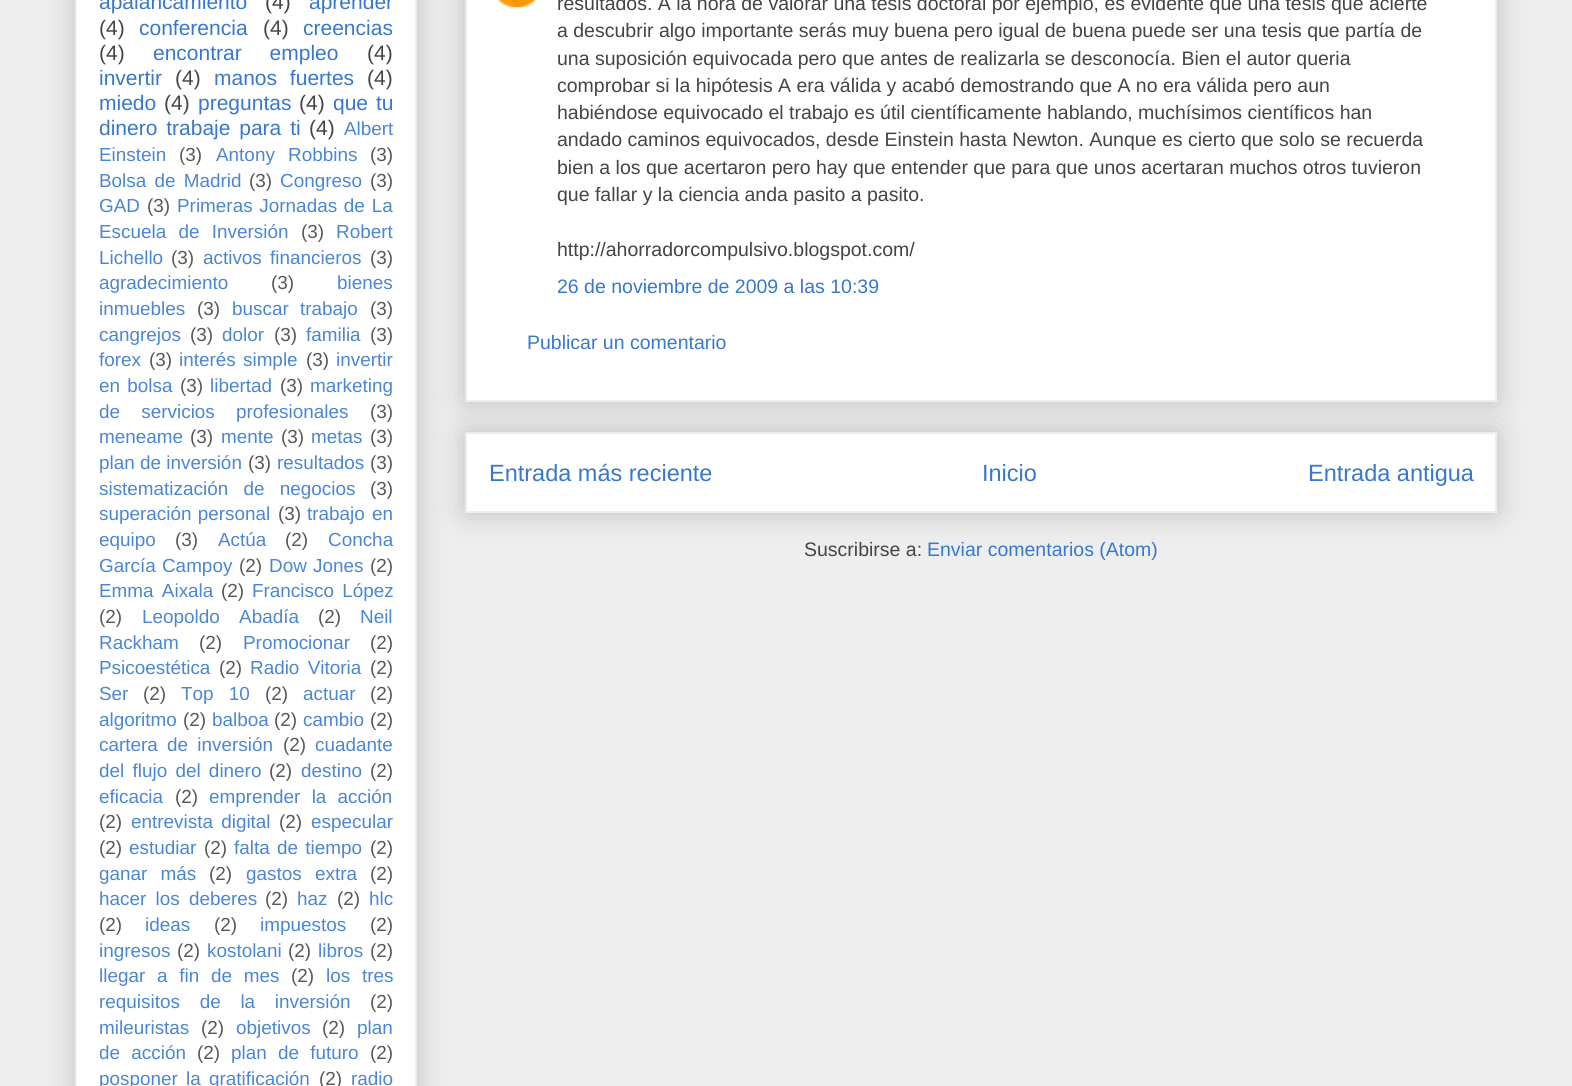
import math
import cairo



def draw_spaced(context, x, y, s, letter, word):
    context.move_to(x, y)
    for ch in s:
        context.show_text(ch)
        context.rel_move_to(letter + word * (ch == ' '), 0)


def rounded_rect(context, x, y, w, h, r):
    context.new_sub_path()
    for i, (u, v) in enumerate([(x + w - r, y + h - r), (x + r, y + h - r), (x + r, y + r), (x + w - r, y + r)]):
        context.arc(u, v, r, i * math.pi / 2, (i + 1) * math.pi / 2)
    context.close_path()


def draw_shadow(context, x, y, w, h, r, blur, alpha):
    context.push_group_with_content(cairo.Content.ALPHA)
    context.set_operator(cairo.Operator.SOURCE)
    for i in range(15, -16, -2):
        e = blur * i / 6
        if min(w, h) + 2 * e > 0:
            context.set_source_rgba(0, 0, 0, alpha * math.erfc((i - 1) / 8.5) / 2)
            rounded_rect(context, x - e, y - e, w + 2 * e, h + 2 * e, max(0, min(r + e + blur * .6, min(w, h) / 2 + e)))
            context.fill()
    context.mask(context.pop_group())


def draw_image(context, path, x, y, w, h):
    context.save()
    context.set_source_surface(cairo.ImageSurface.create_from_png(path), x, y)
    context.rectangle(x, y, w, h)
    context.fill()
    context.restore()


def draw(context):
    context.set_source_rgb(238 / 255, 238 / 255, 238 / 255)
    context.paint()
    context.set_source_rgb(0, 0, 0)
    draw_shadow(context, 75, -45, 342, 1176, 0, 15, 0.2)
    context.set_source_rgb(1, 1, 1)
    context.rectangle(76, -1, 340, 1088)
    context.fill_preserve()
    context.set_source_rgb(238 / 255, 238 / 255, 238 / 255)
    context.stroke()
    context.set_source_rgb(0, 0, 0)
    draw_shadow(context, 465, 432, 1032, 81, 0, 15, 0.2)
    context.set_source_rgb(1, 1, 1)
    context.rectangle(466, 433, 1030, 79)
    context.fill_preserve()
    context.set_source_rgb(238 / 255, 238 / 255, 238 / 255)
    context.stroke()
    context.set_source_rgb(0, 0, 0)
    draw_shadow(context, 465, -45, 1032, 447, 0, 15, 0.2)
    context.set_source_rgb(1, 1, 1)
    context.rectangle(466, -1, 1030, 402)
    context.fill_preserve()
    context.set_source_rgb(238 / 255, 238 / 255, 238 / 255)
    context.stroke()
    draw_image(context, "images/1.png", 496, 0, 41, 8)
    context.select_font_face("Liberation Sans")
    context.set_font_size(21)
    context.set_source_rgb(55 / 255, 120 / 255, 205 / 255)
    context.move_to(99, 9)
    context.show_text("apalancamiento")
    context.set_source_rgb(68 / 255, 68 / 255, 68 / 255)
    context.move_to(265, 9)
    context.show_text("(4)")
    context.set_source_rgb(55 / 255, 120 / 255, 205 / 255)
    context.move_to(309, 9)
    context.show_text("aprender")
    context.set_source_rgb(68 / 255, 68 / 255, 68 / 255)
    context.move_to(99, 35)
    context.show_text("(4)")
    context.set_source_rgb(55 / 255, 120 / 255, 205 / 255)
    context.move_to(139, 35)
    context.show_text("conferencia")
    context.set_source_rgb(68 / 255, 68 / 255, 68 / 255)
    context.move_to(263, 35)
    context.show_text("(4)")
    context.set_source_rgb(55 / 255, 120 / 255, 205 / 255)
    context.move_to(303, 35)
    context.show_text("creencias")
    context.set_source_rgb(68 / 255, 68 / 255, 68 / 255)
    context.move_to(99, 60)
    context.show_text("(4)")
    context.set_source_rgb(55 / 255, 120 / 255, 205 / 255)
    draw_spaced(context, 153, 60, "encontrar empleo", 0, 22)
    context.set_source_rgb(68 / 255, 68 / 255, 68 / 255)
    context.move_to(367, 60)
    context.show_text("(4)")
    context.set_source_rgb(55 / 255, 120 / 255, 205 / 255)
    context.move_to(99, 85)
    context.show_text("invertir")
    context.set_source_rgb(68 / 255, 68 / 255, 68 / 255)
    context.move_to(175, 85)
    context.show_text("(4)")
    context.set_source_rgb(55 / 255, 120 / 255, 205 / 255)
    draw_spaced(context, 214, 85, "manos fuertes", 0, 7)
    context.set_source_rgb(68 / 255, 68 / 255, 68 / 255)
    context.move_to(367, 85)
    context.show_text("(4)")
    context.set_source_rgb(55 / 255, 120 / 255, 205 / 255)
    context.move_to(99, 110)
    context.show_text("miedo")
    context.set_source_rgb(68 / 255, 68 / 255, 68 / 255)
    context.move_to(164, 110)
    context.show_text("(4)")
    context.set_source_rgb(55 / 255, 120 / 255, 205 / 255)
    context.move_to(198, 110)
    context.show_text("preguntas")
    context.set_source_rgb(68 / 255, 68 / 255, 68 / 255)
    context.move_to(299, 110)
    context.show_text("(4)")
    context.set_source_rgb(55 / 255, 120 / 255, 205 / 255)
    draw_spaced(context, 333, 110, "que tu", 0, 2)
    draw_spaced(context, 99, 135, "dinero trabaje para ti", 0, 3)
    context.set_source_rgb(68 / 255, 68 / 255, 68 / 255)
    context.move_to(309, 135)
    context.show_text("(4)")
    context.set_font_size(18.9)
    context.set_source_rgb(75 / 255, 134 / 255, 210 / 255)
    context.move_to(344, 135)
    context.show_text("Albert")
    context.move_to(99, 161)
    context.show_text("Einstein")
    context.set_source_rgb(87 / 255, 87 / 255, 87 / 255)
    context.move_to(179, 161)
    context.show_text("(3)")
    context.set_source_rgb(75 / 255, 134 / 255, 210 / 255)
    draw_spaced(context, 216, 161, "Antony Robbins", 0, 8)
    context.set_source_rgb(87 / 255, 87 / 255, 87 / 255)
    context.move_to(370, 161)
    context.show_text("(3)")
    context.set_source_rgb(75 / 255, 134 / 255, 210 / 255)
    draw_spaced(context, 99, 187, "Bolsa de Madrid", 0, 3)
    context.set_source_rgb(87 / 255, 87 / 255, 87 / 255)
    context.move_to(249, 187)
    context.show_text("(3)")
    context.set_source_rgb(75 / 255, 134 / 255, 210 / 255)
    context.move_to(280, 187)
    context.show_text("Congreso")
    context.set_source_rgb(87 / 255, 87 / 255, 87 / 255)
    context.move_to(370, 187)
    context.show_text("(3)")
    context.set_source_rgb(75 / 255, 134 / 255, 210 / 255)
    context.move_to(99, 212)
    context.show_text("GAD")
    context.set_source_rgb(87 / 255, 87 / 255, 87 / 255)
    context.move_to(147, 212)
    context.show_text("(3)")
    context.set_source_rgb(75 / 255, 134 / 255, 210 / 255)
    draw_spaced(context, 177, 212, "Primeras Jornadas de La", 0, 1.5)
    draw_spaced(context, 99, 238, "Escuela de Inversión", 0, 7)
    context.set_source_rgb(87 / 255, 87 / 255, 87 / 255)
    context.move_to(301, 238)
    context.show_text("(3)")
    context.set_source_rgb(75 / 255, 134 / 255, 210 / 255)
    context.move_to(336, 238)
    context.show_text("Robert")
    context.move_to(99, 264)
    context.show_text("Lichello")
    context.set_source_rgb(87 / 255, 87 / 255, 87 / 255)
    context.move_to(171, 264)
    context.show_text("(3)")
    context.set_source_rgb(75 / 255, 134 / 255, 210 / 255)
    draw_spaced(context, 203, 264, "activos financieros", 0, 3)
    context.set_source_rgb(87 / 255, 87 / 255, 87 / 255)
    context.move_to(370, 264)
    context.show_text("(3)")
    context.set_source_rgb(75 / 255, 134 / 255, 210 / 255)
    context.move_to(99, 289)
    context.show_text("agradecimiento")
    context.set_source_rgb(87 / 255, 87 / 255, 87 / 255)
    context.move_to(271, 289)
    context.show_text("(3)")
    context.set_source_rgb(75 / 255, 134 / 255, 210 / 255)
    context.move_to(337, 289)
    context.show_text("bienes")
    context.move_to(99, 315)
    context.show_text("inmuebles")
    context.set_source_rgb(87 / 255, 87 / 255, 87 / 255)
    context.move_to(197, 315)
    context.show_text("(3)")
    context.set_source_rgb(75 / 255, 134 / 255, 210 / 255)
    draw_spaced(context, 232, 315, "buscar trabajo", 0, 6)
    context.set_source_rgb(87 / 255, 87 / 255, 87 / 255)
    context.move_to(370, 315)
    context.show_text("(3)")
    context.set_source_rgb(75 / 255, 134 / 255, 210 / 255)
    context.move_to(99, 341)
    context.show_text("cangrejos")
    context.set_source_rgb(87 / 255, 87 / 255, 87 / 255)
    context.move_to(190, 341)
    context.show_text("(3)")
    context.set_source_rgb(75 / 255, 134 / 255, 210 / 255)
    context.move_to(222, 341)
    context.show_text("dolor")
    context.set_source_rgb(87 / 255, 87 / 255, 87 / 255)
    context.move_to(274, 341)
    context.show_text("(3)")
    context.set_source_rgb(75 / 255, 134 / 255, 210 / 255)
    context.move_to(306, 341)
    context.show_text("familia")
    context.set_source_rgb(87 / 255, 87 / 255, 87 / 255)
    context.move_to(370, 341)
    context.show_text("(3)")
    context.set_source_rgb(75 / 255, 134 / 255, 210 / 255)
    context.move_to(99, 366)
    context.show_text("forex")
    context.set_source_rgb(87 / 255, 87 / 255, 87 / 255)
    context.move_to(149, 366)
    context.show_text("(3)")
    context.set_source_rgb(75 / 255, 134 / 255, 210 / 255)
    draw_spaced(context, 179, 366, "interés simple", 0, 2)
    context.set_source_rgb(87 / 255, 87 / 255, 87 / 255)
    context.move_to(306, 366)
    context.show_text("(3)")
    context.set_source_rgb(75 / 255, 134 / 255, 210 / 255)
    context.move_to(336, 366)
    context.show_text("invertir")
    draw_spaced(context, 99, 392, "en bolsa", 0, 2)
    context.set_source_rgb(87 / 255, 87 / 255, 87 / 255)
    context.move_to(180, 392)
    context.show_text("(3)")
    context.set_source_rgb(75 / 255, 134 / 255, 210 / 255)
    context.move_to(210, 392)
    context.show_text("libertad")
    context.set_source_rgb(87 / 255, 87 / 255, 87 / 255)
    context.move_to(280, 392)
    context.show_text("(3)")
    context.set_source_rgb(75 / 255, 134 / 255, 210 / 255)
    context.move_to(310, 392)
    context.show_text("marketing")
    draw_spaced(context, 99, 418, "de servicios profesionales", 0, 16)
    context.set_source_rgb(87 / 255, 87 / 255, 87 / 255)
    context.move_to(370, 418)
    context.show_text("(3)")
    context.set_source_rgb(75 / 255, 134 / 255, 210 / 255)
    context.move_to(99, 443)
    context.show_text("meneame")
    context.set_source_rgb(87 / 255, 87 / 255, 87 / 255)
    context.move_to(190, 443)
    context.show_text("(3)")
    context.set_source_rgb(75 / 255, 134 / 255, 210 / 255)
    context.move_to(221, 443)
    context.show_text("mente")
    context.set_source_rgb(87 / 255, 87 / 255, 87 / 255)
    context.move_to(281, 443)
    context.show_text("(3)")
    context.set_source_rgb(75 / 255, 134 / 255, 210 / 255)
    context.move_to(311, 443)
    context.show_text("metas")
    context.set_source_rgb(87 / 255, 87 / 255, 87 / 255)
    context.move_to(370, 443)
    context.show_text("(3)")
    context.set_source_rgb(75 / 255, 134 / 255, 210 / 255)
    context.move_to(99, 469)
    context.show_text("plan de inversión")
    context.set_source_rgb(87 / 255, 87 / 255, 87 / 255)
    context.move_to(248, 469)
    context.show_text("(3)")
    context.set_source_rgb(75 / 255, 134 / 255, 210 / 255)
    context.move_to(277, 469)
    context.show_text("resultados")
    context.set_source_rgb(87 / 255, 87 / 255, 87 / 255)
    context.move_to(370, 469)
    context.show_text("(3)")
    context.set_source_rgb(75 / 255, 134 / 255, 210 / 255)
    draw_spaced(context, 99, 495, "sistematización de negocios", 0, 10)
    context.set_source_rgb(87 / 255, 87 / 255, 87 / 255)
    context.move_to(370, 495)
    context.show_text("(3)")
    context.set_source_rgb(75 / 255, 134 / 255, 210 / 255)
    draw_spaced(context, 99, 520, "superación personal", 0, 1)
    context.set_source_rgb(87 / 255, 87 / 255, 87 / 255)
    context.move_to(278, 520)
    context.show_text("(3)")
    context.set_source_rgb(75 / 255, 134 / 255, 210 / 255)
    draw_spaced(context, 307, 520, "trabajo en", 0, 2)
    context.move_to(99, 546)
    context.show_text("equipo")
    context.set_source_rgb(87 / 255, 87 / 255, 87 / 255)
    context.move_to(175, 546)
    context.show_text("(3)")
    context.set_source_rgb(75 / 255, 134 / 255, 210 / 255)
    context.move_to(218, 546)
    context.show_text("Actúa")
    context.set_source_rgb(87 / 255, 87 / 255, 87 / 255)
    context.move_to(285, 546)
    context.show_text("(2)")
    context.set_source_rgb(75 / 255, 134 / 255, 210 / 255)
    context.move_to(328, 546)
    context.show_text("Concha")
    draw_spaced(context, 99, 572, "García Campoy", 0, 1)
    context.set_source_rgb(87 / 255, 87 / 255, 87 / 255)
    context.move_to(239, 572)
    context.show_text("(2)")
    context.set_source_rgb(75 / 255, 134 / 255, 210 / 255)
    draw_spaced(context, 269, 572, "Dow Jones", 0, 1)
    context.set_source_rgb(87 / 255, 87 / 255, 87 / 255)
    context.move_to(370, 572)
    context.show_text("(2)")
    context.set_source_rgb(75 / 255, 134 / 255, 210 / 255)
    draw_spaced(context, 99, 597, "Emma Aixala", 0, 3)
    context.set_source_rgb(87 / 255, 87 / 255, 87 / 255)
    context.move_to(221, 597)
    context.show_text("(2)")
    context.set_source_rgb(75 / 255, 134 / 255, 210 / 255)
    draw_spaced(context, 252, 597, "Francisco López", 0, 3)
    context.set_source_rgb(87 / 255, 87 / 255, 87 / 255)
    context.move_to(99, 623)
    context.show_text("(2)")
    context.set_source_rgb(75 / 255, 134 / 255, 210 / 255)
    draw_spaced(context, 142, 623, "Leopoldo Abadía", 0, 14)
    context.set_source_rgb(87 / 255, 87 / 255, 87 / 255)
    context.move_to(318, 623)
    context.show_text("(2)")
    context.set_source_rgb(75 / 255, 134 / 255, 210 / 255)
    context.move_to(360, 623)
    context.show_text("Neil")
    context.move_to(99, 649)
    context.show_text("Rackham")
    context.set_source_rgb(87 / 255, 87 / 255, 87 / 255)
    context.move_to(199, 649)
    context.show_text("(2)")
    context.set_source_rgb(75 / 255, 134 / 255, 210 / 255)
    context.move_to(243, 649)
    context.show_text("Promocionar")
    context.set_source_rgb(87 / 255, 87 / 255, 87 / 255)
    context.move_to(370, 649)
    context.show_text("(2)")
    context.set_source_rgb(75 / 255, 134 / 255, 210 / 255)
    context.move_to(99, 674)
    context.show_text("Psicoestética")
    context.set_source_rgb(87 / 255, 87 / 255, 87 / 255)
    context.move_to(219, 674)
    context.show_text("(2)")
    context.set_source_rgb(75 / 255, 134 / 255, 210 / 255)
    draw_spaced(context, 250, 674, "Radio Vitoria", 0, 3)
    context.set_source_rgb(87 / 255, 87 / 255, 87 / 255)
    context.move_to(370, 674)
    context.show_text("(2)")
    context.set_source_rgb(75 / 255, 134 / 255, 210 / 255)
    context.move_to(99, 700)
    context.show_text("Ser")
    context.set_source_rgb(87 / 255, 87 / 255, 87 / 255)
    context.move_to(143, 700)
    context.show_text("(2)")
    context.set_source_rgb(75 / 255, 134 / 255, 210 / 255)
    draw_spaced(context, 181, 700, "Top 10", 0, 10)
    context.set_source_rgb(87 / 255, 87 / 255, 87 / 255)
    context.move_to(265, 700)
    context.show_text("(2)")
    context.set_source_rgb(75 / 255, 134 / 255, 210 / 255)
    context.move_to(303, 700)
    context.show_text("actuar")
    context.set_source_rgb(87 / 255, 87 / 255, 87 / 255)
    context.move_to(370, 700)
    context.show_text("(2)")
    context.set_source_rgb(75 / 255, 134 / 255, 210 / 255)
    context.move_to(99, 726)
    context.show_text("algoritmo")
    context.set_source_rgb(87 / 255, 87 / 255, 87 / 255)
    context.move_to(183, 726)
    context.show_text("(2)")
    context.set_source_rgb(75 / 255, 134 / 255, 210 / 255)
    context.move_to(212, 726)
    context.show_text("balboa")
    context.set_source_rgb(87 / 255, 87 / 255, 87 / 255)
    context.move_to(274, 726)
    context.show_text("(2)")
    context.set_source_rgb(75 / 255, 134 / 255, 210 / 255)
    context.move_to(303, 726)
    context.show_text("cambio")
    context.set_source_rgb(87 / 255, 87 / 255, 87 / 255)
    context.move_to(370, 726)
    context.show_text("(2)")
    context.set_source_rgb(75 / 255, 134 / 255, 210 / 255)
    draw_spaced(context, 99, 751, "cartera de inversión", 0, 4)
    context.set_source_rgb(87 / 255, 87 / 255, 87 / 255)
    context.move_to(283, 751)
    context.show_text("(2)")
    context.set_source_rgb(75 / 255, 134 / 255, 210 / 255)
    context.move_to(315, 751)
    context.show_text("cuadante")
    draw_spaced(context, 99, 777, "del flujo del dinero", 0, 3)
    context.set_source_rgb(87 / 255, 87 / 255, 87 / 255)
    context.move_to(269, 777)
    context.show_text("(2)")
    context.set_source_rgb(75 / 255, 134 / 255, 210 / 255)
    context.move_to(301, 777)
    context.show_text("destino")
    context.set_source_rgb(87 / 255, 87 / 255, 87 / 255)
    context.move_to(370, 777)
    context.show_text("(2)")
    context.set_source_rgb(75 / 255, 134 / 255, 210 / 255)
    context.move_to(99, 803)
    context.show_text("eficacia")
    context.set_source_rgb(87 / 255, 87 / 255, 87 / 255)
    context.move_to(175, 803)
    context.show_text("(2)")
    context.set_source_rgb(75 / 255, 134 / 255, 210 / 255)
    draw_spaced(context, 209, 803, "emprender la acción", 0, 6)
    context.set_source_rgb(87 / 255, 87 / 255, 87 / 255)
    context.move_to(99, 828)
    context.show_text("(2)")
    context.set_source_rgb(75 / 255, 134 / 255, 210 / 255)
    draw_spaced(context, 131, 828, "entrevista digital", 0, 3)
    context.set_source_rgb(87 / 255, 87 / 255, 87 / 255)
    context.move_to(279, 828)
    context.show_text("(2)")
    context.set_source_rgb(75 / 255, 134 / 255, 210 / 255)
    context.move_to(311, 828)
    context.show_text("especular")
    context.set_source_rgb(87 / 255, 87 / 255, 87 / 255)
    context.move_to(99, 854)
    context.show_text("(2)")
    context.set_source_rgb(75 / 255, 134 / 255, 210 / 255)
    context.move_to(129, 854)
    context.show_text("estudiar")
    context.set_source_rgb(87 / 255, 87 / 255, 87 / 255)
    context.move_to(204, 854)
    context.show_text("(2)")
    context.set_source_rgb(75 / 255, 134 / 255, 210 / 255)
    draw_spaced(context, 234, 854, "falta de tiempo", 0, 2)
    context.set_source_rgb(87 / 255, 87 / 255, 87 / 255)
    context.move_to(370, 854)
    context.show_text("(2)")
    context.set_source_rgb(75 / 255, 134 / 255, 210 / 255)
    draw_spaced(context, 99, 880, "ganar más", 0, 8)
    context.set_source_rgb(87 / 255, 87 / 255, 87 / 255)
    context.move_to(209, 880)
    context.show_text("(2)")
    context.set_source_rgb(75 / 255, 134 / 255, 210 / 255)
    draw_spaced(context, 246, 880, "gastos extra", 0, 8)
    context.set_source_rgb(87 / 255, 87 / 255, 87 / 255)
    context.move_to(370, 880)
    context.show_text("(2)")
    context.set_source_rgb(75 / 255, 134 / 255, 210 / 255)
    draw_spaced(context, 99, 905, "hacer los deberes", 0, 4)
    context.set_source_rgb(87 / 255, 87 / 255, 87 / 255)
    context.move_to(265, 905)
    context.show_text("(2)")
    context.set_source_rgb(75 / 255, 134 / 255, 210 / 255)
    context.move_to(297, 905)
    context.show_text("haz")
    context.set_source_rgb(87 / 255, 87 / 255, 87 / 255)
    context.move_to(337, 905)
    context.show_text("(2)")
    context.set_source_rgb(75 / 255, 134 / 255, 210 / 255)
    context.move_to(369, 905)
    context.show_text("hlc")
    context.set_source_rgb(87 / 255, 87 / 255, 87 / 255)
    context.move_to(99, 931)
    context.show_text("(2)")
    context.set_source_rgb(75 / 255, 134 / 255, 210 / 255)
    context.move_to(145, 931)
    context.show_text("ideas")
    context.set_source_rgb(87 / 255, 87 / 255, 87 / 255)
    context.move_to(214, 931)
    context.show_text("(2)")
    context.set_source_rgb(75 / 255, 134 / 255, 210 / 255)
    context.move_to(260, 931)
    context.show_text("impuestos")
    context.set_source_rgb(87 / 255, 87 / 255, 87 / 255)
    context.move_to(370, 931)
    context.show_text("(2)")
    context.set_source_rgb(75 / 255, 134 / 255, 210 / 255)
    context.move_to(99, 957)
    context.show_text("ingresos")
    context.set_source_rgb(87 / 255, 87 / 255, 87 / 255)
    context.move_to(177, 957)
    context.show_text("(2)")
    context.set_source_rgb(75 / 255, 134 / 255, 210 / 255)
    context.move_to(207, 957)
    context.show_text("kostolani")
    context.set_source_rgb(87 / 255, 87 / 255, 87 / 255)
    context.move_to(288, 957)
    context.show_text("(2)")
    context.set_source_rgb(75 / 255, 134 / 255, 210 / 255)
    context.move_to(318, 957)
    context.show_text("libros")
    context.set_source_rgb(87 / 255, 87 / 255, 87 / 255)
    context.move_to(370, 957)
    context.show_text("(2)")
    context.set_source_rgb(75 / 255, 134 / 255, 210 / 255)
    draw_spaced(context, 99, 982, "llegar a fin de mes", 0, 6.5)
    context.set_source_rgb(87 / 255, 87 / 255, 87 / 255)
    context.move_to(291, 982)
    context.show_text("(2)")
    context.set_source_rgb(75 / 255, 134 / 255, 210 / 255)
    draw_spaced(context, 326, 982, "los tres", 0, 6.5)
    draw_spaced(context, 99, 1008, "requisitos de la inversión", 0, 14.5)
    context.set_source_rgb(87 / 255, 87 / 255, 87 / 255)
    context.move_to(370, 1008)
    context.show_text("(2)")
    context.set_source_rgb(75 / 255, 134 / 255, 210 / 255)
    context.move_to(99, 1034)
    context.show_text("mileuristas")
    context.set_source_rgb(87 / 255, 87 / 255, 87 / 255)
    context.move_to(201, 1034)
    context.show_text("(2)")
    context.set_source_rgb(75 / 255, 134 / 255, 210 / 255)
    context.move_to(236, 1034)
    context.show_text("objetivos")
    context.set_source_rgb(87 / 255, 87 / 255, 87 / 255)
    context.move_to(322, 1034)
    context.show_text("(2)")
    context.set_source_rgb(75 / 255, 134 / 255, 210 / 255)
    context.move_to(357, 1034)
    context.show_text("plan")
    draw_spaced(context, 99, 1059, "de acción", 0, 6)
    context.set_source_rgb(87 / 255, 87 / 255, 87 / 255)
    context.move_to(197, 1059)
    context.show_text("(2)")
    context.set_source_rgb(75 / 255, 134 / 255, 210 / 255)
    draw_spaced(context, 231, 1059, "plan de futuro", 0, 6)
    context.set_source_rgb(87 / 255, 87 / 255, 87 / 255)
    context.move_to(370, 1059)
    context.show_text("(2)")
    context.set_source_rgb(75 / 255, 134 / 255, 210 / 255)
    draw_spaced(context, 99, 1085, "posponer la gratificación", 0, 3)
    context.set_source_rgb(87 / 255, 87 / 255, 87 / 255)
    context.move_to(319, 1085)
    context.show_text("(2)")
    context.set_source_rgb(75 / 255, 134 / 255, 210 / 255)
    context.move_to(351, 1085)
    context.show_text("radio")
    context.set_font_size(19.5)
    context.set_source_rgb(68 / 255, 68 / 255, 68 / 255)
    context.move_to(557, 10)
    context.show_text("resultados. A la hora de valorar una tesis doctoral por ejemplo, es evidente que una tesis que acierte")
    context.move_to(557, 37)
    context.show_text("a descubrir algo importante serás muy buena pero igual de buena puede ser una tesis que partía de")
    context.move_to(557, 65)
    context.show_text("una suposición equivocada pero que antes de realizarla se desconocía. Bien el autor queria")
    context.move_to(557, 92)
    context.show_text("comprobar si la hipótesis A era válida y acabó demostrando que A no era válida pero aun")
    context.move_to(557, 119)
    context.show_text("habiéndose equivocado el trabajo es útil científicamente hablando, muchísimos científicos han")
    context.move_to(557, 146)
    context.show_text("andado caminos equivocados, desde Einstein hasta Newton. Aunque es cierto que solo se recuerda")
    context.move_to(557, 174)
    context.show_text("bien a los que acertaron pero hay que entender que para que unos acertaran muchos otros tuvieron")
    context.move_to(557, 201)
    context.show_text("que fallar y la ciencia anda pasito a pasito.")
    context.move_to(557, 256)
    context.show_text("http://ahorradorcompulsivo.blogspot.com/")
    context.set_source_rgb(55 / 255, 120 / 255, 205 / 255)
    context.move_to(557, 293)
    context.show_text("26 de noviembre de 2009 a las 10:39")
    context.move_to(527, 349)
    context.show_text("Publicar un comentario")
    context.set_font_size(23.5)
    context.move_to(489, 481)
    context.show_text("Entrada más reciente")
    context.move_to(982, 481)
    context.show_text("Inicio")
    context.move_to(1308, 481)
    context.show_text("Entrada antigua")
    context.set_font_size(19.5)
    context.set_source_rgb(68 / 255, 68 / 255, 68 / 255)
    context.move_to(804, 556)
    context.show_text("Suscribirse a:")
    context.set_source_rgb(55 / 255, 120 / 255, 205 / 255)
    context.move_to(927, 556)
    context.show_text("Enviar comentarios (Atom)")


surface = cairo.ImageSurface(cairo.Format.RGB24, 1572, 1086)
context = cairo.Context(surface)
options = cairo.FontOptions()
options.set_hint_metrics(cairo.HintMetrics.OFF)
options.set_hint_style(cairo.HintStyle.NONE)
context.set_font_options(options)
context.set_miter_limit(4)
draw(context)
surface.write_to_png("out.png")
